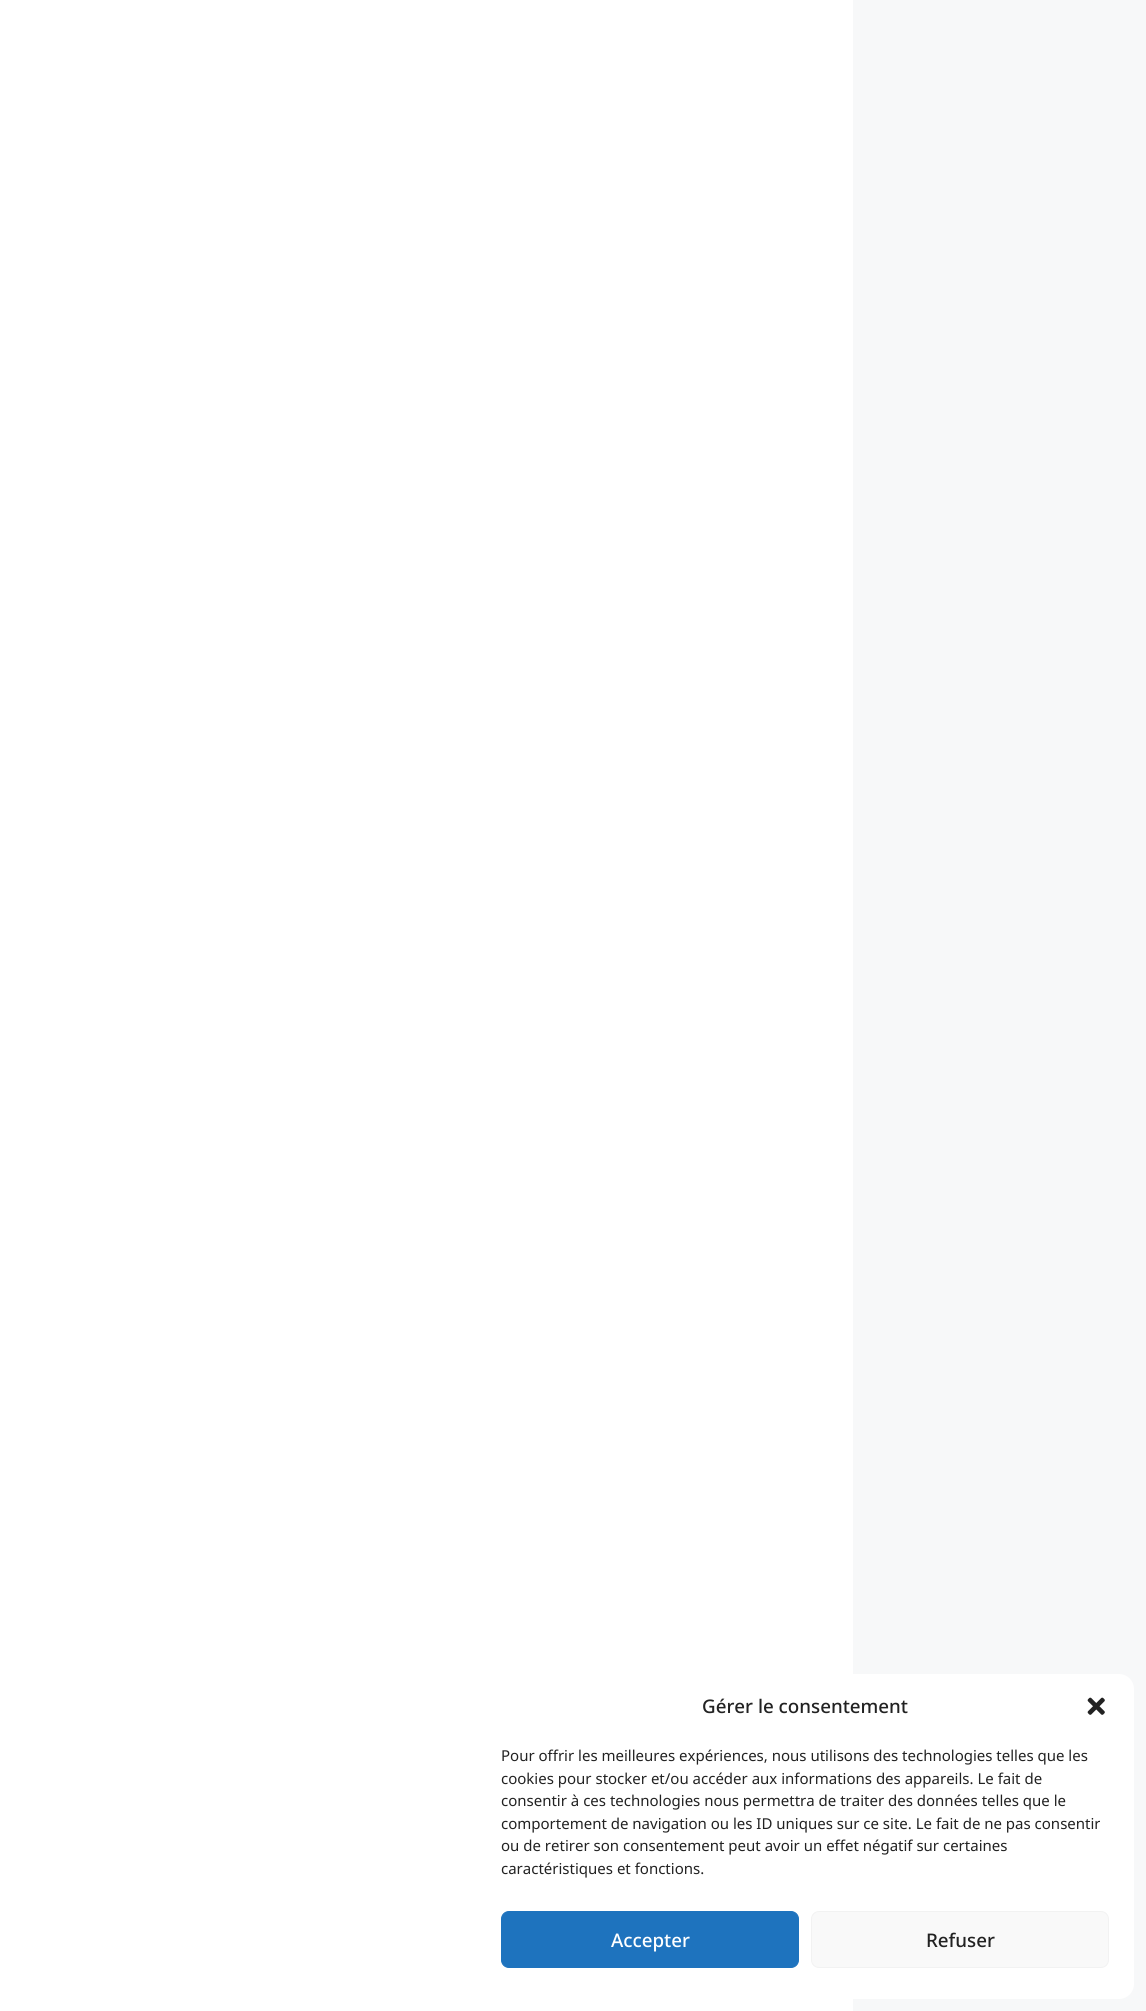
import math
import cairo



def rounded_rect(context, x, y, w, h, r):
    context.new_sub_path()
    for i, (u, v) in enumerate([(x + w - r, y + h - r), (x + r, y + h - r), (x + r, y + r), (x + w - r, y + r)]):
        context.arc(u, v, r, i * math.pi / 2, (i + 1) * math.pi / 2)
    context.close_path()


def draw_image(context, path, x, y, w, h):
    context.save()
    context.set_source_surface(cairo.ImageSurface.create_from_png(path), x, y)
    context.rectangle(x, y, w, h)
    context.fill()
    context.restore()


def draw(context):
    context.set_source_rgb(247 / 255, 248 / 255, 249 / 255)
    context.paint()
    context.set_source_rgb(1, 1, 1)
    context.rectangle(0, 0, 853, 2011)
    context.fill()
    rounded_rect(context, 476, 1674, 658, 325, 15)
    context.fill()
    draw_image(context, "images/1.png", 1087, 1697, 18, 18)
    context.set_source_rgb(30 / 255, 115 / 255, 190 / 255)
    rounded_rect(context, 501.5, 1911.5, 297, 56, 7.5)
    context.fill_preserve()
    context.set_line_width(1)
    context.stroke()
    context.set_source_rgb(249 / 255, 249 / 255, 249 / 255)
    rounded_rect(context, 811.5, 1911.5, 297, 56, 7.5)
    context.fill_preserve()
    context.set_source_rgb(242 / 255, 242 / 255, 242 / 255)
    context.stroke()
    context.select_font_face("Noto Sans Medium")
    context.set_font_size(18.75)
    context.set_source_rgb(34 / 255, 34 / 255, 34 / 255)
    context.move_to(702, 1713)
    context.show_text("Gérer le consentement")
    context.select_font_face("Noto Sans")
    context.set_font_size(15)
    context.move_to(501, 1761)
    context.show_text("Pour offrir les meilleures expériences, nous utilisons des technologies telles que les")
    context.move_to(501, 1784)
    context.show_text("cookies pour stocker et/ou accéder aux informations des appareils. Le fait de")
    context.move_to(501, 1806)
    context.show_text("consentir à ces technologies nous permettra de traiter des données telles que le")
    context.move_to(501, 1829)
    context.show_text("comportement de navigation ou les ID uniques sur ce site. Le fait de ne pas consentir")
    context.move_to(501, 1851)
    context.show_text("ou de retirer son consentement peut avoir un effet négatif sur certaines")
    context.move_to(501, 1874)
    context.show_text("caractéristiques et fonctions.")
    context.select_font_face("Noto Sans Medium")
    context.set_font_size(18.75)
    context.set_source_rgb(1, 1, 1)
    context.move_to(611, 1947)
    context.show_text("Accepter")
    context.set_source_rgb(34 / 255, 34 / 255, 34 / 255)
    context.move_to(926, 1947)
    context.show_text("Refuser")


surface = cairo.ImageSurface(cairo.Format.RGB24, 1146, 2011)
context = cairo.Context(surface)
options = cairo.FontOptions()
options.set_hint_metrics(cairo.HintMetrics.OFF)
options.set_hint_style(cairo.HintStyle.NONE)
context.set_font_options(options)
context.set_miter_limit(4)
draw(context)
surface.write_to_png("out.png")
